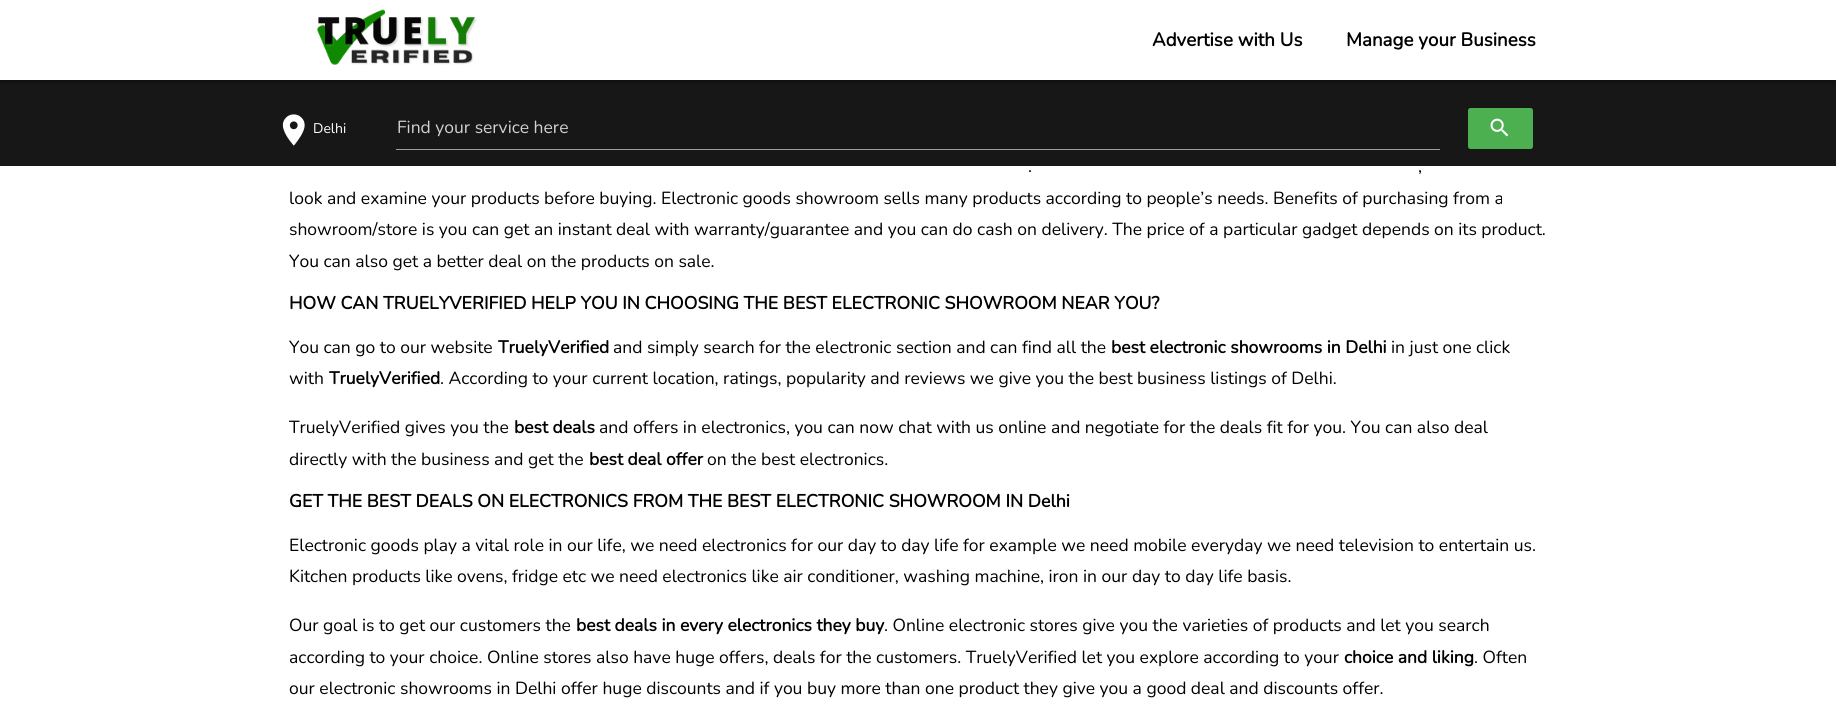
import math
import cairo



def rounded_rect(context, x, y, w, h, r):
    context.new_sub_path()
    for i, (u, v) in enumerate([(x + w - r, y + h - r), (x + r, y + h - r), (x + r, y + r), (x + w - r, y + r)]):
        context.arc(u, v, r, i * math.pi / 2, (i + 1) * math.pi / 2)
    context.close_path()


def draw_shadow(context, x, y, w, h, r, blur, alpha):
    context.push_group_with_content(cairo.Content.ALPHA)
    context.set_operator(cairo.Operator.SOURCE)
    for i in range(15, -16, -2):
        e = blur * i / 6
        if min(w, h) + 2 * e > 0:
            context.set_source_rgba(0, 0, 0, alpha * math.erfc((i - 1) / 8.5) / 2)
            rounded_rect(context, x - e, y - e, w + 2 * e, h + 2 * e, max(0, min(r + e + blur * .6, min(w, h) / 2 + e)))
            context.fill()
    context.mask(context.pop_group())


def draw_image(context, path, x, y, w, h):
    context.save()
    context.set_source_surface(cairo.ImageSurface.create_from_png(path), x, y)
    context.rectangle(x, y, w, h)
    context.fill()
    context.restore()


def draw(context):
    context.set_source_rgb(1, 1, 1)
    context.paint()
    context.set_source_rgba(0, 0, 0, 0.91)
    context.rectangle(0, 80, 1836, 86)
    context.fill()
    context.set_source_rgb(0, 0, 0)
    draw_shadow(context, 0, 1, 1836, 80, 0, 3, 0.2)
    draw_shadow(context, 3, 6, 1831, 75, 0, 0.5, 0.12)
    draw_shadow(context, 0, 3, 1836, 80, 0, 1, 0.14)
    context.set_source_rgb(1, 1, 1)
    context.rectangle(0, 0, 1836, 80)
    context.fill()
    draw_image(context, "images/1.png", 316, 9, 161, 56)
    draw_image(context, "images/2.png", 282, 114, 23, 32)
    context.set_source_rgb(158 / 255, 158 / 255, 158 / 255)
    context.rectangle(396, 149, 1044, 1)
    context.fill()
    context.set_source_rgb(76 / 255, 175 / 255, 80 / 255)
    rounded_rect(context, 1468, 108, 65, 41, 2.5)
    context.fill()
    draw_image(context, "images/3.png", 1490, 118, 19, 19)
    context.select_font_face("Nunito", cairo.FontSlant.NORMAL, cairo.FontWeight.BOLD)
    context.set_font_size(18.75)
    context.set_source_rgb(0, 0, 0)
    context.move_to(1152, 46)
    context.show_text("Advertise with Us")
    context.move_to(1346, 46)
    context.show_text("Manage your Business")
    context.select_font_face("Nunito ExtraLight")
    context.set_font_size(14)
    context.set_source_rgb(1, 1, 1)
    context.move_to(313, 133)
    context.show_text("Delhi")
    context.set_font_size(17.5)
    context.set_source_rgb(209 / 255, 209 / 255, 209 / 255)
    context.move_to(397, 133)
    context.show_text("Find your service here")
    context.set_source_rgb(0, 0, 0)
    context.move_to(1028, 172)
    context.show_text(".")
    context.move_to(1418, 172)
    context.show_text(",")
    context.move_to(289, 204)
    context.show_text("look and examine your products before buying. Electronic goods showroom sells many products according to people’s needs. Benefits of purchasing from a")
    context.move_to(289, 235)
    context.show_text("showroom/store is you can get an instant deal with warranty/guarantee and you can do cash on delivery. The price of a particular gadget depends on its product.")
    context.move_to(289, 267)
    context.show_text("You can also get a better deal on the products on sale.")
    context.select_font_face("Nunito", cairo.FontSlant.NORMAL, cairo.FontWeight.BOLD)
    context.set_font_size(17.8)
    context.move_to(289, 309)
    context.show_text("HOW CAN TRUELYVERIFIED HELP YOU IN CHOOSING THE BEST ELECTRONIC SHOWROOM NEAR YOU?")
    context.select_font_face("Nunito ExtraLight")
    context.set_font_size(17.5)
    context.move_to(289, 353)
    context.show_text("You can go to our website")
    context.select_font_face("Nunito", cairo.FontSlant.NORMAL, cairo.FontWeight.BOLD)
    context.move_to(498, 353)
    context.show_text("TruelyVerified")
    context.select_font_face("Nunito ExtraLight")
    context.move_to(613, 353)
    context.show_text("and simply search for the electronic section and can find all the")
    context.select_font_face("Nunito", cairo.FontSlant.NORMAL, cairo.FontWeight.BOLD)
    context.move_to(1111, 353)
    context.show_text("best electronic showrooms in Delhi")
    context.select_font_face("Nunito ExtraLight")
    context.move_to(1391, 353)
    context.show_text("in just one click")
    context.move_to(289, 384)
    context.show_text("with")
    context.select_font_face("Nunito", cairo.FontSlant.NORMAL, cairo.FontWeight.BOLD)
    context.move_to(329, 384)
    context.show_text("TruelyVerified")
    context.select_font_face("Nunito ExtraLight")
    context.move_to(440, 384)
    context.show_text(". According to your current location, ratings, popularity and reviews we give you the best business listings of Delhi.")
    context.move_to(289, 433)
    context.show_text("TruelyVerified gives you the")
    context.select_font_face("Nunito", cairo.FontSlant.NORMAL, cairo.FontWeight.BOLD)
    context.move_to(514, 433)
    context.show_text("best deals")
    context.select_font_face("Nunito ExtraLight")
    context.move_to(599, 433)
    context.show_text("and offers in electronics, you can now chat with us online and negotiate for the deals fit for you. You can also deal")
    context.move_to(289, 465)
    context.show_text("directly with the business and get the")
    context.select_font_face("Nunito", cairo.FontSlant.NORMAL, cairo.FontWeight.BOLD)
    context.move_to(589, 465)
    context.show_text("best deal offer")
    context.select_font_face("Nunito ExtraLight")
    context.move_to(707, 465)
    context.show_text("on the best electronics.")
    context.select_font_face("Nunito", cairo.FontSlant.NORMAL, cairo.FontWeight.BOLD)
    context.set_font_size(17.8)
    context.move_to(289, 507)
    context.show_text("GET THE BEST DEALS ON ELECTRONICS FROM THE BEST ELECTRONIC SHOWROOM IN Delhi")
    context.select_font_face("Nunito ExtraLight")
    context.set_font_size(17.5)
    context.move_to(289, 551)
    context.show_text("Electronic goods play a vital role in our life, we need electronics for our day to day life for example we need mobile everyday we need television to entertain us.")
    context.move_to(289, 582)
    context.show_text("Kitchen products like ovens, fridge etc we need electronics like air conditioner, washing machine, iron in our day to day life basis.")
    context.move_to(289, 631)
    context.show_text("Our goal is to get our customers the")
    context.select_font_face("Nunito", cairo.FontSlant.NORMAL, cairo.FontWeight.BOLD)
    context.move_to(576, 631)
    context.show_text("best deals in every electronics they buy")
    context.select_font_face("Nunito ExtraLight")
    context.move_to(884, 631)
    context.show_text(". Online electronic stores give you the varieties of products and let you search")
    context.move_to(289, 663)
    context.show_text("according to your choice. Online stores also have huge offers, deals for the customers. TruelyVerified let you explore according to your")
    context.select_font_face("Nunito", cairo.FontSlant.NORMAL, cairo.FontWeight.BOLD)
    context.move_to(1344, 663)
    context.show_text("choice and liking")
    context.select_font_face("Nunito ExtraLight")
    context.move_to(1474, 663)
    context.show_text(". Often")
    context.move_to(289, 694)
    context.show_text("our electronic showrooms in Delhi offer huge discounts and if you buy more than one product they give you a good deal and discounts offer.")


surface = cairo.ImageSurface(cairo.Format.RGB24, 1836, 703)
context = cairo.Context(surface)
options = cairo.FontOptions()
options.set_hint_metrics(cairo.HintMetrics.OFF)
options.set_hint_style(cairo.HintStyle.NONE)
context.set_font_options(options)
context.set_miter_limit(4)
draw(context)
surface.write_to_png("out.png")
